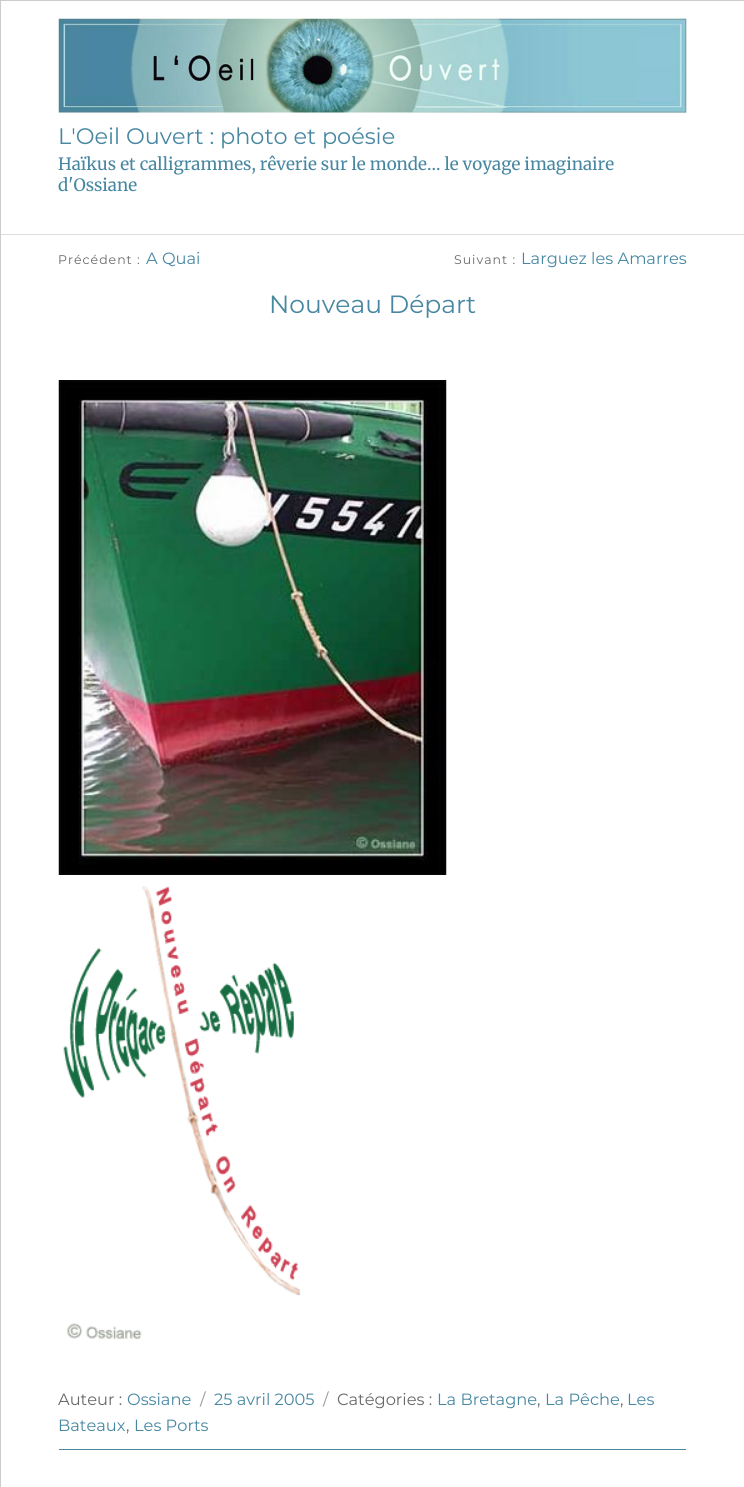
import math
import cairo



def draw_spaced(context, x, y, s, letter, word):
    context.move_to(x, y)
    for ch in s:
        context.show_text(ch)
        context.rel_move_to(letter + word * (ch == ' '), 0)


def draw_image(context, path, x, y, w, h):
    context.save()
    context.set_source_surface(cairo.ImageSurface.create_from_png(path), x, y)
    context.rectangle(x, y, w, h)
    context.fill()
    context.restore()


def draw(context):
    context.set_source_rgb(1, 1, 1)
    context.paint()
    context.rectangle(0.5, 0.5, 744, 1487)
    context.set_source_rgb(204 / 255, 204 / 255, 204 / 255)
    context.set_line_width(1)
    context.stroke()
    context.set_source_rgb(221 / 255, 221 / 255, 221 / 255)
    context.rectangle(1, 234, 743, 1)
    context.fill()
    draw_image(context, "images/1.png", 58, 18, 629, 95)
    draw_image(context, "images/2.png", 58, 380, 389, 495)
    draw_image(context, "images/3.png", 63, 886, 238, 453)
    context.set_source_rgb(73 / 255, 134 / 255, 160 / 255)
    context.rectangle(59, 1449, 627, 1)
    context.fill()
    context.select_font_face("Montserrat")
    context.set_font_size(22.4)
    context.set_source_rgb(71 / 255, 135 / 255, 161 / 255)
    context.move_to(58, 144)
    context.show_text("L'Oeil Ouvert : photo et poésie")
    context.select_font_face("Merriweather")
    context.set_font_size(17)
    context.move_to(58, 170)
    context.show_text("Haïkus et calligrammes, rêverie sur le monde… le voyage imaginaire")
    context.move_to(58, 191)
    context.show_text("d'Ossiane")
    context.select_font_face("Montserrat")
    context.set_font_size(12.5)
    context.set_source_rgb(104 / 255, 104 / 255, 104 / 255)
    draw_spaced(context, 58, 264, "Précédent :", 1, 0)
    context.set_font_size(16.25)
    context.set_source_rgb(71 / 255, 135 / 255, 161 / 255)
    context.move_to(146, 264)
    context.show_text("A Quai")
    context.set_font_size(12.5)
    context.set_source_rgb(104 / 255, 104 / 255, 104 / 255)
    draw_spaced(context, 454, 264, "Suivant :", 1, 0)
    context.set_font_size(16.25)
    context.set_source_rgb(71 / 255, 135 / 255, 161 / 255)
    context.move_to(521, 264)
    context.show_text("Larguez les Amarres")
    context.set_font_size(25)
    context.move_to(269, 313)
    context.show_text("Nouveau Départ")
    context.set_font_size(16.25)
    context.set_source_rgb(104 / 255, 104 / 255, 104 / 255)
    context.move_to(58, 1405)
    context.show_text("Auteur :")
    context.set_source_rgb(71 / 255, 135 / 255, 161 / 255)
    context.move_to(127, 1405)
    context.show_text("Ossiane")
    context.set_source_rgb(149 / 255, 149 / 255, 149 / 255)
    context.move_to(200, 1405)
    context.show_text("/")
    context.set_source_rgb(71 / 255, 135 / 255, 161 / 255)
    context.move_to(214, 1405)
    context.show_text("25 avril 2005")
    context.set_source_rgb(149 / 255, 149 / 255, 149 / 255)
    context.move_to(323, 1405)
    context.show_text("/")
    context.set_source_rgb(104 / 255, 104 / 255, 104 / 255)
    context.move_to(337, 1405)
    context.show_text("Catégories :")
    context.set_source_rgb(71 / 255, 135 / 255, 161 / 255)
    context.move_to(437, 1405)
    context.show_text("La Bretagne")
    context.set_source_rgb(104 / 255, 104 / 255, 104 / 255)
    context.move_to(537, 1405)
    context.show_text(",")
    context.set_source_rgb(71 / 255, 135 / 255, 161 / 255)
    context.move_to(545, 1405)
    context.show_text("La Pêche")
    context.set_source_rgb(104 / 255, 104 / 255, 104 / 255)
    context.move_to(620, 1405)
    context.show_text(",")
    context.set_source_rgb(71 / 255, 135 / 255, 161 / 255)
    context.move_to(627, 1405)
    context.show_text("Les")
    context.move_to(58, 1431)
    context.show_text("Bateaux")
    context.set_source_rgb(104 / 255, 104 / 255, 104 / 255)
    context.move_to(126, 1431)
    context.show_text(",")
    context.set_source_rgb(71 / 255, 135 / 255, 161 / 255)
    context.move_to(134, 1431)
    context.show_text("Les Ports")


surface = cairo.ImageSurface(cairo.Format.RGB24, 744, 1487)
context = cairo.Context(surface)
options = cairo.FontOptions()
options.set_hint_metrics(cairo.HintMetrics.OFF)
options.set_hint_style(cairo.HintStyle.NONE)
context.set_font_options(options)
context.set_miter_limit(4)
draw(context)
surface.write_to_png("out.png")
